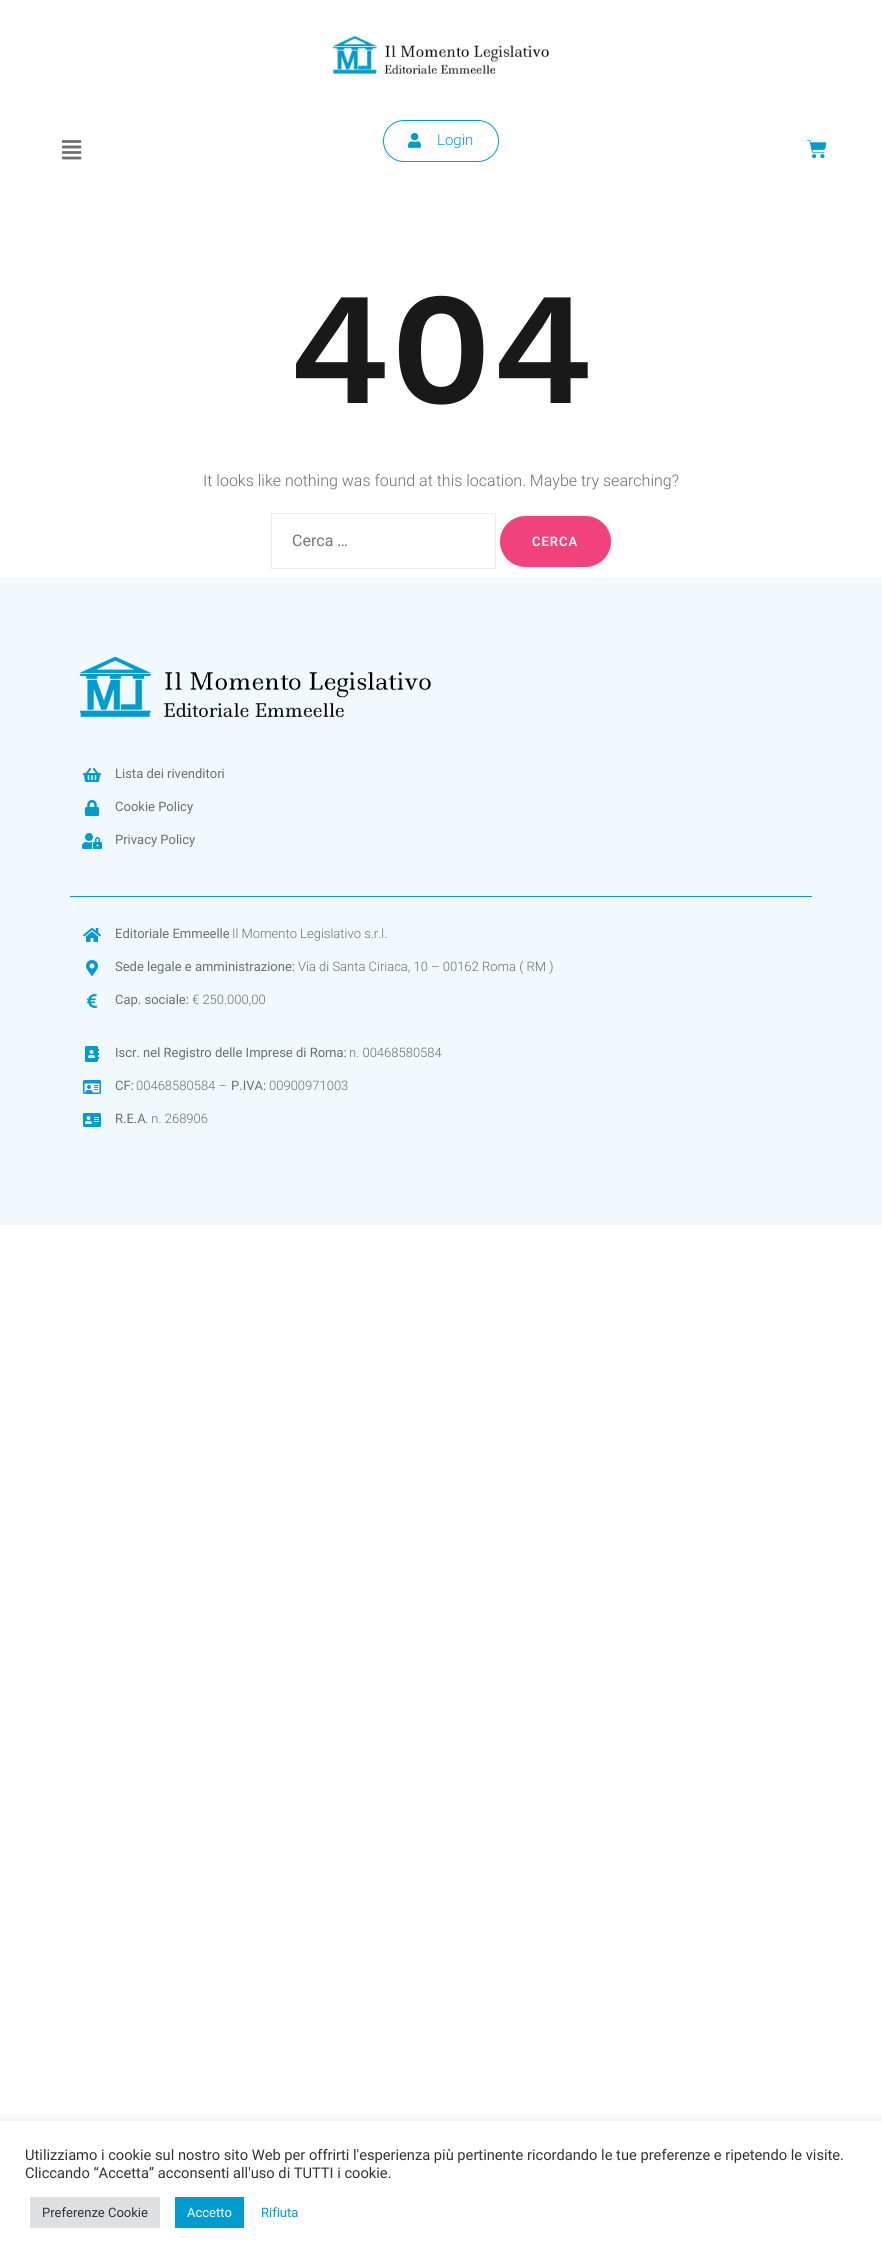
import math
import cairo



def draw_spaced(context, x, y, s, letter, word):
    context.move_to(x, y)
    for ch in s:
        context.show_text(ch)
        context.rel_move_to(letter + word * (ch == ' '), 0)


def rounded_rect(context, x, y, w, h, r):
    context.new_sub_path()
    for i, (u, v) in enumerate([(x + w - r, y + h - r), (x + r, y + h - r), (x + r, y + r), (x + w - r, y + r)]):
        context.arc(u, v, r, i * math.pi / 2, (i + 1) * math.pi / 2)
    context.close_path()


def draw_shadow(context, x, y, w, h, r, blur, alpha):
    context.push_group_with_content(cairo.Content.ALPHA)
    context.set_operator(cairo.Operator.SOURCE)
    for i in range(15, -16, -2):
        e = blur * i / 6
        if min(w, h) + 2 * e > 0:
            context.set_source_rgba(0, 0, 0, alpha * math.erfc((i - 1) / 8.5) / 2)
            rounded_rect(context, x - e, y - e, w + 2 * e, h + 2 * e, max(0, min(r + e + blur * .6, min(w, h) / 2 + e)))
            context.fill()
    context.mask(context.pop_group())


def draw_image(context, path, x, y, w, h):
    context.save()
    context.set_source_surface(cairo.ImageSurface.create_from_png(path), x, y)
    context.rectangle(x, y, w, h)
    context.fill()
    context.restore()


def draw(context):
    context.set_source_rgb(1, 1, 1)
    context.paint()
    draw_image(context, "images/1.png", 332, 35, 217, 40)
    draw_image(context, "images/2.png", 62, 140, 20, 20)
    rounded_rect(context, 383.5, 120.5, 115, 41, 20.5)
    context.set_source_rgb(0, 156 / 255, 208 / 255)
    context.set_line_width(1)
    context.stroke()
    draw_image(context, "images/3.png", 408, 132, 14, 16)
    draw_image(context, "images/4.png", 807, 139, 20, 20)
    context.rectangle(271.5, 513.5, 224, 55)
    context.set_source_rgb(235 / 255, 235 / 255, 235 / 255)
    context.stroke()
    context.set_source_rgb(240 / 255, 67 / 255, 126 / 255)
    rounded_rect(context, 501, 517, 109, 49, 24.5)
    context.fill_preserve()
    context.set_line_width(2)
    context.stroke()
    context.set_source_rgb(241 / 255, 249 / 255, 252 / 255)
    context.rectangle(0, 577, 882, 648)
    context.fill()
    draw_image(context, "images/5.png", 79, 656, 352, 62)
    draw_image(context, "images/6.png", 83, 768, 18, 14)
    draw_image(context, "images/7.png", 85, 800, 14, 16)
    draw_image(context, "images/8.png", 82, 833, 20, 16)
    context.set_source_rgb(0, 156 / 255, 208 / 255)
    context.rectangle(70, 896, 742, 1)
    context.fill()
    draw_image(context, "images/9.png", 83, 928, 18, 14)
    draw_image(context, "images/10.png", 86, 960, 12, 16)
    draw_image(context, "images/11.png", 87, 994, 10, 14)
    draw_image(context, "images/12.png", 85, 1046, 14, 16)
    draw_image(context, "images/13.png", 83, 1080, 18, 14)
    draw_image(context, "images/14.png", 83, 1113, 18, 14)
    context.save()
    context.rectangle(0, 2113, 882, 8)
    context.clip()
    context.set_source_rgb(172 / 255, 171 / 255, 171 / 255)
    draw_shadow(context, 0, 2120, 882, 137, 0, 5, 0.3)
    context.restore()
    context.set_source_rgb(222 / 255, 223 / 255, 224 / 255)
    context.rectangle(30, 2197, 130, 31)
    context.fill()
    context.set_source_rgb(0, 156 / 255, 208 / 255)
    context.rectangle(175, 2197, 69, 31)
    context.fill()
    context.select_font_face("Roboto Light")
    context.set_font_size(15)
    context.move_to(437, 145)
    context.show_text("Login")
    context.select_font_face("Work Sans SemiBold")
    context.set_font_size(160)
    context.set_source_rgb(25 / 255, 25 / 255, 25 / 255)
    context.move_to(289, 403)
    context.show_text("404")
    context.select_font_face("Roboto Light")
    context.set_font_size(16)
    context.set_source_rgb(109 / 255, 109 / 255, 109 / 255)
    context.move_to(203, 486)
    context.show_text("It looks like nothing was found at this location. Maybe try searching?")
    context.select_font_face("Roboto")
    context.set_source_rgb(117 / 255, 117 / 255, 117 / 255)
    context.move_to(292, 546)
    context.show_text("Cerca …")
    context.select_font_face("Roboto SemiBold")
    context.set_font_size(13)
    context.set_source_rgb(1, 1, 1)
    draw_spaced(context, 532, 546, "CERCA", 1, 0)
    context.select_font_face("Roboto")
    context.set_source_rgb(109 / 255, 109 / 255, 109 / 255)
    context.move_to(115, 778)
    context.show_text("Lista dei rivenditori")
    context.move_to(115, 811)
    context.show_text("Cookie Policy")
    context.move_to(115, 844)
    context.show_text("Privacy Policy")
    context.move_to(115, 938)
    context.show_text("Editoriale Emmeelle")
    context.select_font_face("Roboto Light")
    context.move_to(232, 938)
    context.show_text("Il Momento Legislativo s.r.l.")
    context.select_font_face("Roboto")
    context.move_to(115, 971)
    context.show_text("Sede legale e amministrazione:")
    context.select_font_face("Roboto Light")
    context.move_to(298, 971)
    context.show_text("Via di Santa Ciriaca, 10 – 00162 Roma ( RM )")
    context.select_font_face("Roboto")
    context.move_to(115, 1004)
    context.show_text("Cap. sociale:")
    context.select_font_face("Roboto Light")
    context.move_to(192, 1004)
    context.show_text("€ 250.000,00")
    context.select_font_face("Roboto")
    context.move_to(115, 1057)
    context.show_text("Iscr. nel Registro delle Imprese di Roma:")
    context.select_font_face("Roboto Light")
    context.move_to(349, 1057)
    context.show_text("n. 00468580584")
    context.select_font_face("Roboto")
    context.move_to(115, 1090)
    context.show_text("CF:")
    context.select_font_face("Roboto Light")
    context.move_to(136, 1090)
    context.show_text("00468580584 –")
    context.select_font_face("Roboto")
    context.move_to(231, 1090)
    context.show_text("P.IVA:")
    context.select_font_face("Roboto Light")
    context.move_to(269, 1090)
    context.show_text("00900971003")
    context.select_font_face("Roboto")
    context.move_to(115, 1123)
    context.show_text("R.E.A")
    context.select_font_face("Roboto Light")
    context.move_to(145, 1123)
    context.show_text(". n. 268906")
    context.select_font_face("Roboto")
    context.set_font_size(14.67)
    context.set_source_rgb(51 / 255, 51 / 255, 51 / 255)
    context.move_to(25, 2160)
    context.show_text("Utilizziamo i cookie sul nostro sito Web per offrirti l'esperienza più pertinente ricordando le tue preferenze e ripetendo le visite.")
    context.move_to(25, 2178)
    context.show_text("Cliccando “Accetta” acconsenti all'uso di TUTTI i cookie.")
    context.set_font_size(13)
    context.move_to(42, 2217)
    context.show_text("Preferenze Cookie")
    context.set_source_rgb(1, 1, 1)
    context.move_to(187, 2217)
    context.show_text("Accetto")
    context.set_source_rgb(0, 156 / 255, 208 / 255)
    context.move_to(261, 2217)
    context.show_text("Rifiuta")


surface = cairo.ImageSurface(cairo.Format.RGB24, 882, 2258)
context = cairo.Context(surface)
options = cairo.FontOptions()
options.set_hint_metrics(cairo.HintMetrics.OFF)
options.set_hint_style(cairo.HintStyle.NONE)
context.set_font_options(options)
context.set_miter_limit(4)
draw(context)
surface.write_to_png("out.png")
